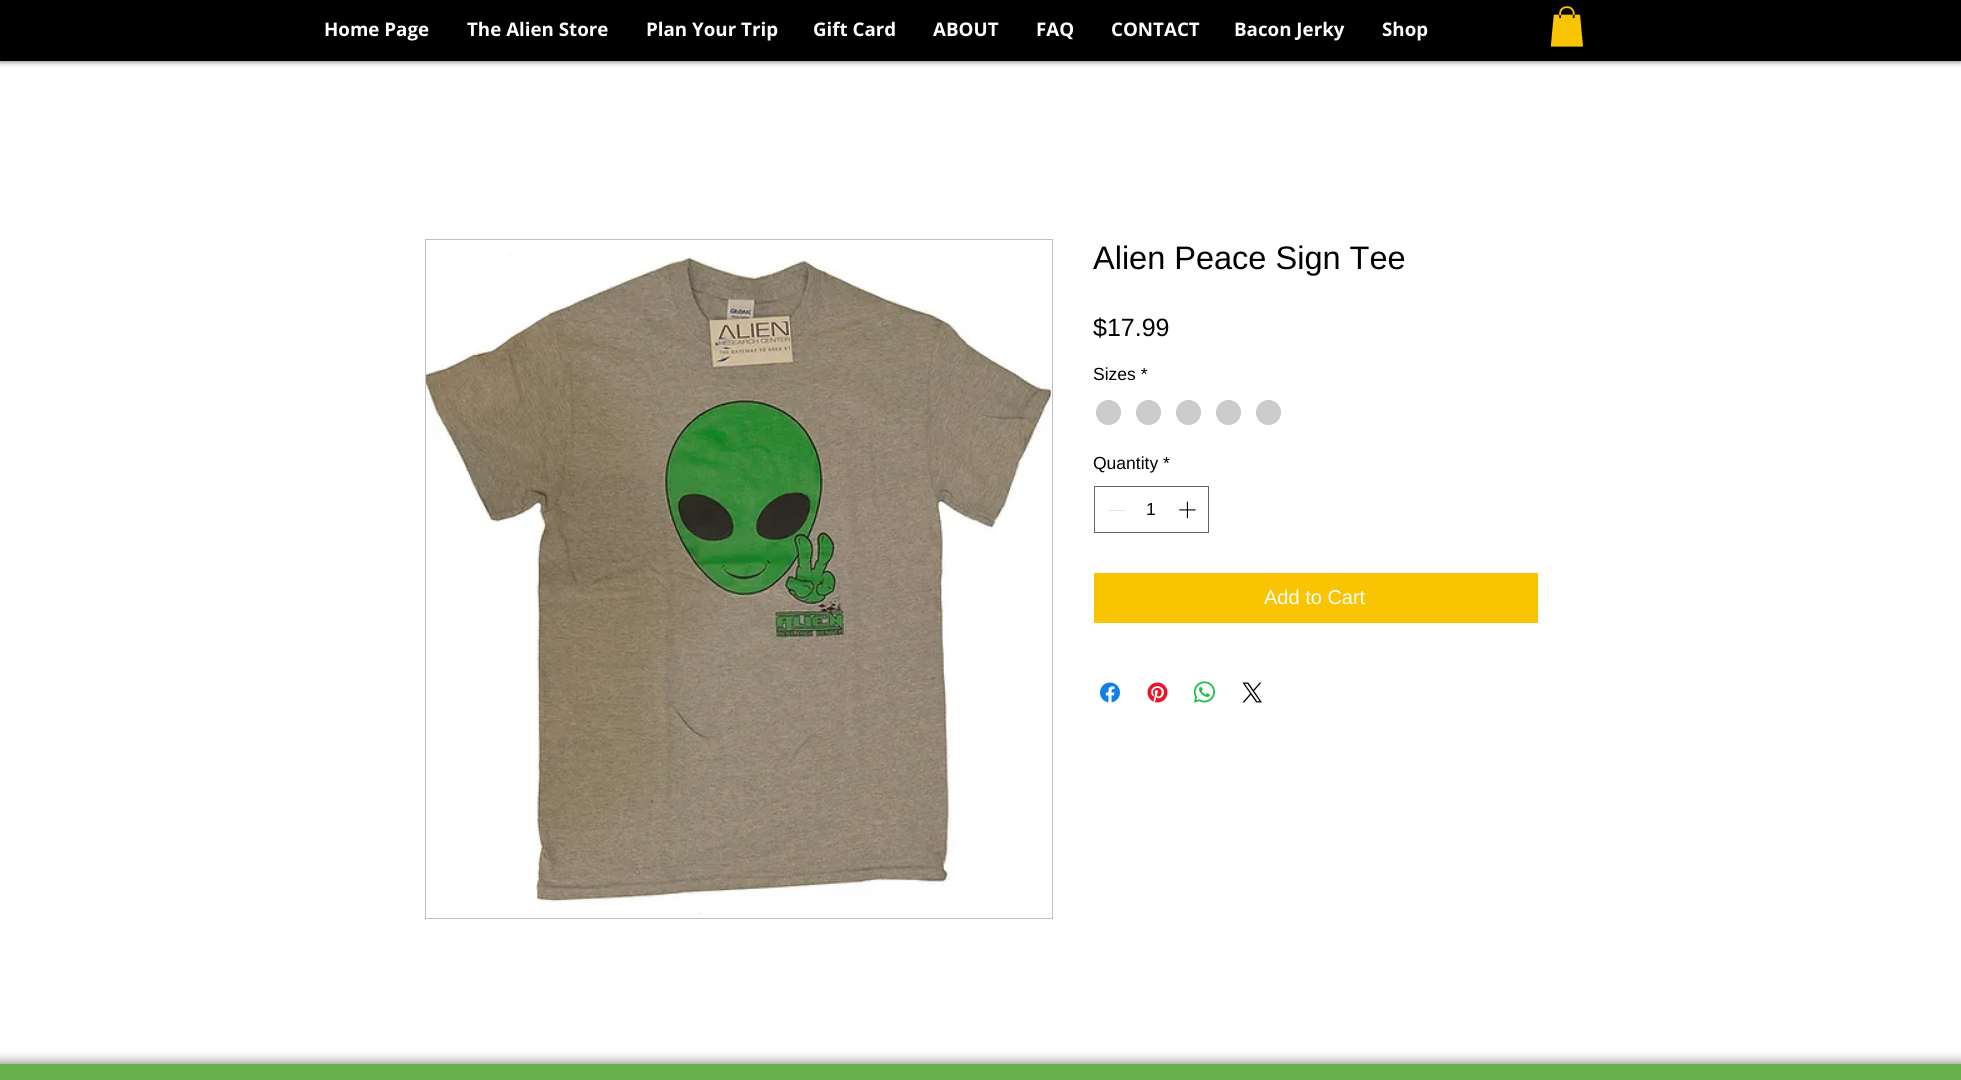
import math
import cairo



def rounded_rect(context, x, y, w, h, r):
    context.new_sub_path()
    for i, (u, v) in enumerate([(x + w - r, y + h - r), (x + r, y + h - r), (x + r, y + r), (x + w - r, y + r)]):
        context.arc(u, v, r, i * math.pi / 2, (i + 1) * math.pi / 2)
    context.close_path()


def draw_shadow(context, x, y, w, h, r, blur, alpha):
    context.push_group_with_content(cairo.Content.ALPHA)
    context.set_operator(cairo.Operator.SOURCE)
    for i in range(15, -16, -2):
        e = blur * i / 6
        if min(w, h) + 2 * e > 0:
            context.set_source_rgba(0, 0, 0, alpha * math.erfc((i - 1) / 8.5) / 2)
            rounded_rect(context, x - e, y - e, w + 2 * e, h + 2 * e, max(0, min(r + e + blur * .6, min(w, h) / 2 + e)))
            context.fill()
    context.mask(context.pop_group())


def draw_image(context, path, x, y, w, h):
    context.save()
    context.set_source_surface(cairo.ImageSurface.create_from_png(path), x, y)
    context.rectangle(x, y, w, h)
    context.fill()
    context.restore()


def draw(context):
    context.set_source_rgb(1, 1, 1)
    context.paint()
    context.set_source_rgb(0, 0, 0)
    draw_shadow(context, 0, 0, 1961, 61, 0, 3, 0.7)
    context.set_source_rgb(0, 0, 0)
    context.rectangle(0, 0, 1961, 61)
    context.fill()
    draw_image(context, "images/1.png", 1550, 6, 33, 41)
    context.rectangle(425.5, 239.5, 627, 679)
    context.set_source_rgb(192 / 255, 192 / 255, 192 / 255)
    context.set_line_width(1)
    context.stroke()
    draw_image(context, "images/2.png", 426, 253, 625, 662)
    context.set_source_rgb(204 / 255, 204 / 255, 204 / 255)
    context.arc(1108.5, 412.5, 12, 0, 2 * math.pi)
    context.fill_preserve()
    context.set_source_rgb(201 / 255, 201 / 255, 201 / 255)
    context.stroke()
    context.set_source_rgb(204 / 255, 204 / 255, 204 / 255)
    context.arc(1148.5, 412.5, 12, 0, 2 * math.pi)
    context.fill_preserve()
    context.set_source_rgb(201 / 255, 201 / 255, 201 / 255)
    context.stroke()
    context.set_source_rgb(204 / 255, 204 / 255, 204 / 255)
    context.arc(1188.5, 412.5, 12, 0, 2 * math.pi)
    context.fill_preserve()
    context.set_source_rgb(201 / 255, 201 / 255, 201 / 255)
    context.stroke()
    context.set_source_rgb(204 / 255, 204 / 255, 204 / 255)
    context.arc(1228.5, 412.5, 12, 0, 2 * math.pi)
    context.fill_preserve()
    context.set_source_rgb(201 / 255, 201 / 255, 201 / 255)
    context.stroke()
    context.set_source_rgb(204 / 255, 204 / 255, 204 / 255)
    context.arc(1268.5, 412.5, 12, 0, 2 * math.pi)
    context.fill_preserve()
    context.set_source_rgb(201 / 255, 201 / 255, 201 / 255)
    context.stroke()
    context.rectangle(1094.5, 486.5, 114, 46)
    context.set_source_rgb(102 / 255, 102 / 255, 102 / 255)
    context.stroke()
    context.set_source_rgb(227 / 255, 227 / 255, 227 / 255)
    context.rectangle(1108, 510, 17, 1)
    context.fill()
    draw_image(context, "images/3.png", 1179, 501, 17, 18)
    context.set_source_rgb(249 / 255, 196 / 255, 2 / 255)
    context.rectangle(1094, 573, 444, 50)
    context.fill()
    draw_image(context, "images/4.png", 1100, 682, 20, 21)
    draw_image(context, "images/5.png", 1147, 682, 21, 21)
    draw_image(context, "images/6.png", 1193, 681, 22, 22)
    draw_image(context, "images/7.png", 1242, 682, 20, 21)
    context.set_source_rgb(0, 0, 0)
    draw_shadow(context, -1, 1063, 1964, 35, 0, 6, 0.5)
    context.set_source_rgb(104 / 255, 176 / 255, 77 / 255)
    context.rectangle(0, 1064, 1961, 16)
    context.fill()
    context.select_font_face("Open Sans", cairo.FontSlant.NORMAL, cairo.FontWeight.BOLD)
    context.set_font_size(18.75)
    context.set_source_rgb(1, 1, 1)
    context.move_to(324, 36)
    context.show_text("Home Page")
    context.move_to(467, 36)
    context.show_text("The Alien Store")
    context.move_to(646, 36)
    context.show_text("Plan Your Trip")
    context.move_to(813, 36)
    context.show_text("Gift Card")
    context.move_to(933, 36)
    context.show_text("ABOUT")
    context.move_to(1036, 36)
    context.show_text("FAQ")
    context.move_to(1111, 36)
    context.show_text("CONTACT")
    context.move_to(1234, 36)
    context.show_text("Bacon Jerky")
    context.move_to(1382, 36)
    context.show_text("Shop")
    context.select_font_face("Liberation Sans")
    context.set_font_size(32.5)
    context.set_source_rgb(0, 0, 0)
    context.move_to(1093, 269)
    context.show_text("Alien Peace Sign Tee")
    context.set_font_size(25)
    context.move_to(1093, 336)
    context.show_text("$17.99")
    context.set_font_size(17.5)
    context.move_to(1093, 380)
    context.show_text("Sizes *")
    context.move_to(1093, 469)
    context.show_text("Quantity *")
    context.move_to(1146, 515)
    context.show_text("1")
    context.set_font_size(20)
    context.set_source_rgb(1, 1, 1)
    context.move_to(1264, 604)
    context.show_text("Add to Cart")


surface = cairo.ImageSurface(cairo.Format.RGB24, 1961, 1080)
context = cairo.Context(surface)
options = cairo.FontOptions()
options.set_hint_metrics(cairo.HintMetrics.OFF)
options.set_hint_style(cairo.HintStyle.NONE)
context.set_font_options(options)
context.set_miter_limit(4)
draw(context)
surface.write_to_png("out.png")
